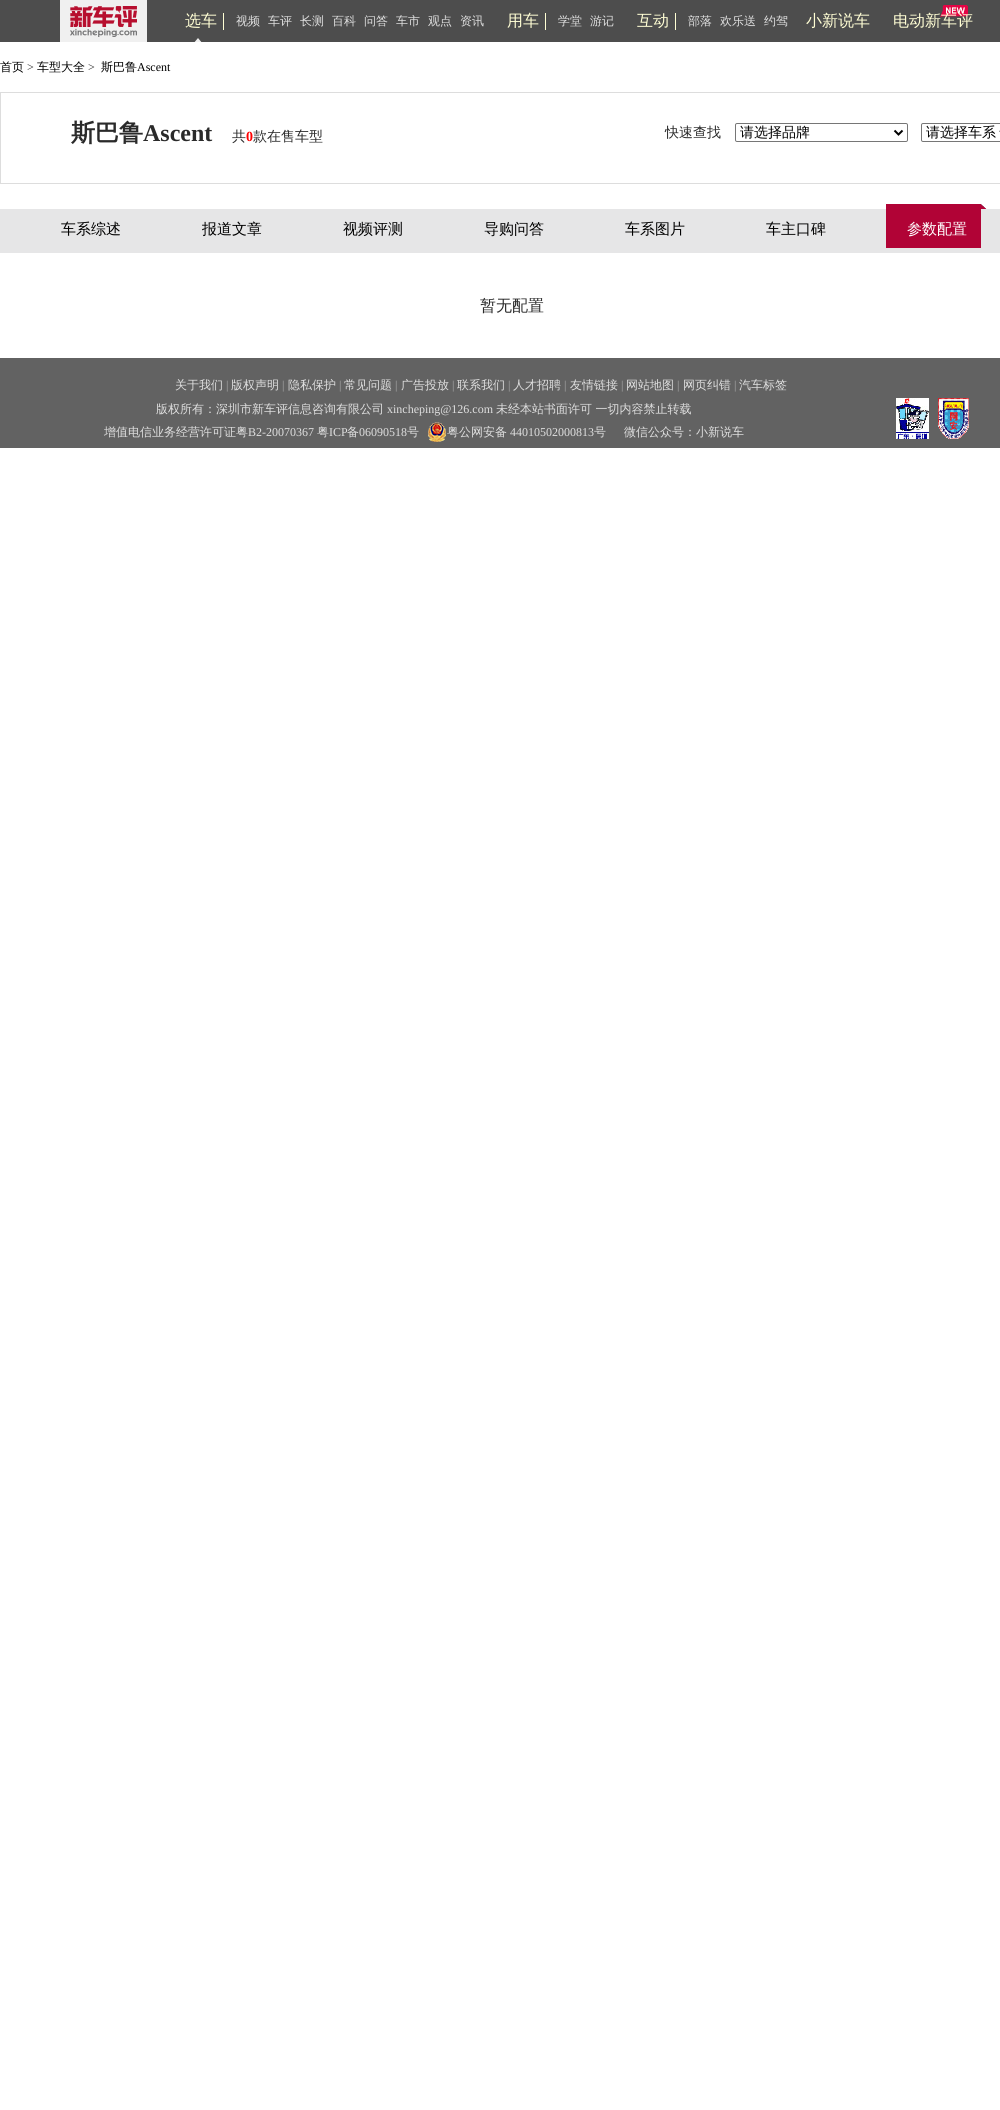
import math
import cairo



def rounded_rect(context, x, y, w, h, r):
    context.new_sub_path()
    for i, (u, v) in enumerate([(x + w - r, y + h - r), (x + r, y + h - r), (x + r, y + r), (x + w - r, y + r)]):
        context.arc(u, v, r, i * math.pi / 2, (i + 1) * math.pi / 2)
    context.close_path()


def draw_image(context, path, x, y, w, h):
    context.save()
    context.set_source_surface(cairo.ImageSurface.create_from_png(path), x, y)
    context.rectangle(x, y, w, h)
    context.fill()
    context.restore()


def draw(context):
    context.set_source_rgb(1, 1, 1)
    context.paint()
    context.set_source_rgb(77 / 255, 77 / 255, 77 / 255)
    context.rectangle(0, 0, 1000, 42)
    context.fill()
    draw_image(context, "images/1.png", 60, 0, 87, 42)
    context.set_source_rgb(1, 254 / 255, 212 / 255)
    context.rectangle(223, 13, 1, 17)
    context.fill()
    draw_image(context, "images/2.png", 194, 38, 8, 4)
    context.rectangle(545, 13, 1, 17)
    context.fill()
    context.rectangle(675, 13, 1, 17)
    context.fill()
    draw_image(context, "images/3.png", 940, 5, 28, 12)
    context.rectangle(0.5, 92.5, 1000, 91)
    context.set_source_rgb(221 / 255, 221 / 255, 221 / 255)
    context.set_line_width(1)
    context.stroke()
    rounded_rect(context, 735.5, 123.5, 172, 18, 1.5)
    context.set_source_rgb(118 / 255, 118 / 255, 118 / 255)
    context.stroke()
    context.new_path()
    context.move_to(894.5, 130.5)
    context.line_to(898.5, 134.5)
    context.line_to(902.5, 130.5)
    context.set_source_rgb(0, 0, 0)
    context.set_line_width(2)
    context.stroke()
    rounded_rect(context, 921.5, 123.5, 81, 18, 1.5)
    context.set_source_rgb(118 / 255, 118 / 255, 118 / 255)
    context.set_line_width(1)
    context.stroke()
    context.new_path()
    context.move_to(1000, 130.5)
    context.line_to(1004, 134.5)
    context.line_to(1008, 130.5)
    context.set_source_rgb(0, 0, 0)
    context.set_line_width(2)
    context.stroke()
    context.set_source_rgb(230 / 255, 230 / 255, 231 / 255)
    context.rectangle(0, 209, 1000, 44)
    context.fill()
    draw_image(context, "images/4.png", 886, 204, 101, 44)
    context.set_source_rgb(98 / 255, 98 / 255, 98 / 255)
    context.rectangle(0, 358, 1000, 90)
    context.fill()
    draw_image(context, "images/5.png", 428, 422, 18, 20)
    draw_image(context, "images/6.png", 896, 398, 33, 41)
    draw_image(context, "images/7.png", 938, 398, 31, 41)
    context.select_font_face("WenQuanYi Zen Hei Medium")
    context.set_font_size(16)
    context.set_source_rgb(1, 254 / 255, 212 / 255)
    context.move_to(185, 26)
    context.show_text("选车")
    context.set_font_size(12)
    context.set_source_rgb(223 / 255, 223 / 255, 223 / 255)
    context.move_to(236, 25)
    context.show_text("视频")
    context.move_to(268, 25)
    context.show_text("车评")
    context.move_to(300, 25)
    context.show_text("长测")
    context.move_to(332, 25)
    context.show_text("百科")
    context.move_to(364, 25)
    context.show_text("问答")
    context.move_to(396, 25)
    context.show_text("车市")
    context.move_to(428, 25)
    context.show_text("观点")
    context.move_to(460, 25)
    context.show_text("资讯")
    context.set_font_size(16)
    context.set_source_rgb(1, 254 / 255, 212 / 255)
    context.move_to(507, 26)
    context.show_text("用车")
    context.set_font_size(12)
    context.set_source_rgb(223 / 255, 223 / 255, 223 / 255)
    context.move_to(558, 25)
    context.show_text("学堂")
    context.move_to(590, 25)
    context.show_text("游记")
    context.set_font_size(16)
    context.set_source_rgb(1, 254 / 255, 212 / 255)
    context.move_to(637, 26)
    context.show_text("互动")
    context.set_font_size(12)
    context.set_source_rgb(223 / 255, 223 / 255, 223 / 255)
    context.move_to(688, 25)
    context.show_text("部落")
    context.move_to(720, 25)
    context.show_text("欢乐送")
    context.move_to(764, 25)
    context.show_text("约驾")
    context.set_font_size(16)
    context.set_source_rgb(1, 254 / 255, 212 / 255)
    context.move_to(806, 26)
    context.show_text("小新说车")
    context.move_to(893, 26)
    context.show_text("电动新车评")
    context.set_font_size(12)
    context.set_source_rgb(0, 0, 0)
    context.move_to(0, 71)
    context.show_text("首页")
    context.select_font_face("Liberation Serif")
    context.set_source_rgb(42 / 255, 42 / 255, 42 / 255)
    context.move_to(27, 71)
    context.show_text(">")
    context.select_font_face("WenQuanYi Zen Hei Medium")
    context.set_source_rgb(0, 0, 0)
    context.move_to(37, 71)
    context.show_text("车型大全")
    context.select_font_face("Liberation Serif")
    context.set_source_rgb(42 / 255, 42 / 255, 42 / 255)
    context.move_to(88, 71)
    context.show_text(">")
    context.select_font_face("WenQuanYi Zen Hei Medium")
    context.set_source_rgb(0, 0, 0)
    context.move_to(101, 71)
    context.show_text("斯巴鲁")
    context.select_font_face("Liberation Serif")
    context.move_to(137, 71)
    context.show_text("Ascent")
    context.select_font_face("WenQuanYi Zen Hei", cairo.FontSlant.NORMAL, cairo.FontWeight.BOLD)
    context.set_font_size(24)
    context.set_source_rgb(42 / 255, 42 / 255, 42 / 255)
    context.move_to(71, 141)
    context.show_text("斯巴鲁")
    context.select_font_face("Liberation Serif", cairo.FontSlant.NORMAL, cairo.FontWeight.BOLD)
    context.move_to(143, 141)
    context.show_text("Ascent")
    context.select_font_face("WenQuanYi Zen Hei Medium")
    context.set_font_size(14)
    context.move_to(232, 141)
    context.show_text("共")
    context.select_font_face("Liberation Serif", cairo.FontSlant.NORMAL, cairo.FontWeight.BOLD)
    context.set_source_rgb(1, 0, 0)
    context.move_to(246, 141)
    context.show_text("0")
    context.select_font_face("WenQuanYi Zen Hei Medium")
    context.set_source_rgb(42 / 255, 42 / 255, 42 / 255)
    context.move_to(253, 141)
    context.show_text("款在售车型")
    context.move_to(665, 137)
    context.show_text("快速查找")
    context.set_source_rgb(0, 0, 0)
    context.move_to(740, 137)
    context.show_text("请选择品牌")
    context.move_to(926, 137)
    context.show_text("请选择车系")
    context.set_font_size(15)
    context.move_to(61, 234)
    context.show_text("车系综述")
    context.move_to(202, 234)
    context.show_text("报道文章")
    context.move_to(343, 234)
    context.show_text("视频评测")
    context.move_to(484, 234)
    context.show_text("导购问答")
    context.move_to(625, 234)
    context.show_text("车系图片")
    context.move_to(766, 234)
    context.show_text("车主口碑")
    context.set_source_rgb(1, 1, 1)
    context.move_to(907, 234)
    context.show_text("参数配置")
    context.set_font_size(16)
    context.set_source_rgb(42 / 255, 42 / 255, 42 / 255)
    context.move_to(480, 311)
    context.show_text("暂无配置")
    context.set_font_size(12)
    context.set_source_rgb(223 / 255, 223 / 255, 223 / 255)
    context.move_to(175, 389)
    context.show_text("关于我们")
    context.select_font_face("Liberation Serif")
    context.set_source_rgb(167 / 255, 167 / 255, 167 / 255)
    context.move_to(226, 389)
    context.show_text("|")
    context.select_font_face("WenQuanYi Zen Hei Medium")
    context.set_source_rgb(223 / 255, 223 / 255, 223 / 255)
    context.move_to(231, 389)
    context.show_text("版权声明")
    context.select_font_face("Liberation Serif")
    context.set_source_rgb(167 / 255, 167 / 255, 167 / 255)
    context.move_to(282, 389)
    context.show_text("|")
    context.select_font_face("WenQuanYi Zen Hei Medium")
    context.set_source_rgb(223 / 255, 223 / 255, 223 / 255)
    context.move_to(288, 389)
    context.show_text("隐私保护")
    context.select_font_face("Liberation Serif")
    context.set_source_rgb(167 / 255, 167 / 255, 167 / 255)
    context.move_to(339, 389)
    context.show_text("|")
    context.select_font_face("WenQuanYi Zen Hei Medium")
    context.set_source_rgb(223 / 255, 223 / 255, 223 / 255)
    context.move_to(344, 389)
    context.show_text("常见问题")
    context.select_font_face("Liberation Serif")
    context.set_source_rgb(167 / 255, 167 / 255, 167 / 255)
    context.move_to(395, 389)
    context.show_text("|")
    context.select_font_face("WenQuanYi Zen Hei Medium")
    context.set_source_rgb(223 / 255, 223 / 255, 223 / 255)
    context.move_to(401, 389)
    context.show_text("广告投放")
    context.select_font_face("Liberation Serif")
    context.set_source_rgb(167 / 255, 167 / 255, 167 / 255)
    context.move_to(452, 389)
    context.show_text("|")
    context.select_font_face("WenQuanYi Zen Hei Medium")
    context.set_source_rgb(223 / 255, 223 / 255, 223 / 255)
    context.move_to(457, 389)
    context.show_text("联系我们")
    context.select_font_face("Liberation Serif")
    context.set_source_rgb(167 / 255, 167 / 255, 167 / 255)
    context.move_to(508, 389)
    context.show_text("|")
    context.select_font_face("WenQuanYi Zen Hei Medium")
    context.set_source_rgb(223 / 255, 223 / 255, 223 / 255)
    context.move_to(513, 389)
    context.show_text("人才招聘")
    context.select_font_face("Liberation Serif")
    context.set_source_rgb(167 / 255, 167 / 255, 167 / 255)
    context.move_to(564, 389)
    context.show_text("|")
    context.select_font_face("WenQuanYi Zen Hei Medium")
    context.set_source_rgb(223 / 255, 223 / 255, 223 / 255)
    context.move_to(570, 389)
    context.show_text("友情链接")
    context.select_font_face("Liberation Serif")
    context.set_source_rgb(167 / 255, 167 / 255, 167 / 255)
    context.move_to(621, 389)
    context.show_text("|")
    context.select_font_face("WenQuanYi Zen Hei Medium")
    context.set_source_rgb(223 / 255, 223 / 255, 223 / 255)
    context.move_to(626, 389)
    context.show_text("网站地图")
    context.select_font_face("Liberation Serif")
    context.set_source_rgb(167 / 255, 167 / 255, 167 / 255)
    context.move_to(677, 389)
    context.show_text("|")
    context.select_font_face("WenQuanYi Zen Hei Medium")
    context.set_source_rgb(223 / 255, 223 / 255, 223 / 255)
    context.move_to(683, 389)
    context.show_text("网页纠错")
    context.select_font_face("Liberation Serif")
    context.set_source_rgb(167 / 255, 167 / 255, 167 / 255)
    context.move_to(734, 389)
    context.show_text("|")
    context.select_font_face("WenQuanYi Zen Hei Medium")
    context.set_source_rgb(223 / 255, 223 / 255, 223 / 255)
    context.move_to(739, 389)
    context.show_text("汽车标签")
    context.move_to(156, 413)
    context.show_text("版权所有：深圳市新车评信息咨询有限公司")
    context.select_font_face("Liberation Serif")
    context.move_to(387, 413)
    context.show_text("xincheping@126.com")
    context.select_font_face("WenQuanYi Zen Hei Medium")
    context.move_to(496, 413)
    context.show_text("未经本站书面许可 一切内容禁止转载")
    context.move_to(104, 436)
    context.show_text("增值电信业务经营许可证粤")
    context.select_font_face("Liberation Serif")
    context.move_to(248, 436)
    context.show_text("B2-20070367")
    context.select_font_face("WenQuanYi Zen Hei Medium")
    context.move_to(317, 436)
    context.show_text("粤")
    context.select_font_face("Liberation Serif")
    context.move_to(329, 436)
    context.show_text("ICP")
    context.select_font_face("WenQuanYi Zen Hei Medium")
    context.move_to(347, 436)
    context.show_text("备")
    context.select_font_face("Liberation Serif")
    context.move_to(359, 436)
    context.show_text("06090518")
    context.select_font_face("WenQuanYi Zen Hei Medium")
    context.move_to(407, 436)
    context.show_text("号")
    context.move_to(447, 436)
    context.show_text("粤公网安备")
    context.select_font_face("Liberation Serif")
    context.move_to(510, 436)
    context.show_text("44010502000813")
    context.select_font_face("WenQuanYi Zen Hei Medium")
    context.move_to(594, 436)
    context.show_text("号")
    context.move_to(624, 436)
    context.show_text("微信公众号：小新说车")


surface = cairo.ImageSurface(cairo.Format.RGB24, 1000, 2110)
context = cairo.Context(surface)
options = cairo.FontOptions()
options.set_hint_metrics(cairo.HintMetrics.OFF)
options.set_hint_style(cairo.HintStyle.NONE)
context.set_font_options(options)
context.set_miter_limit(4)
draw(context)
surface.write_to_png("out.png")
